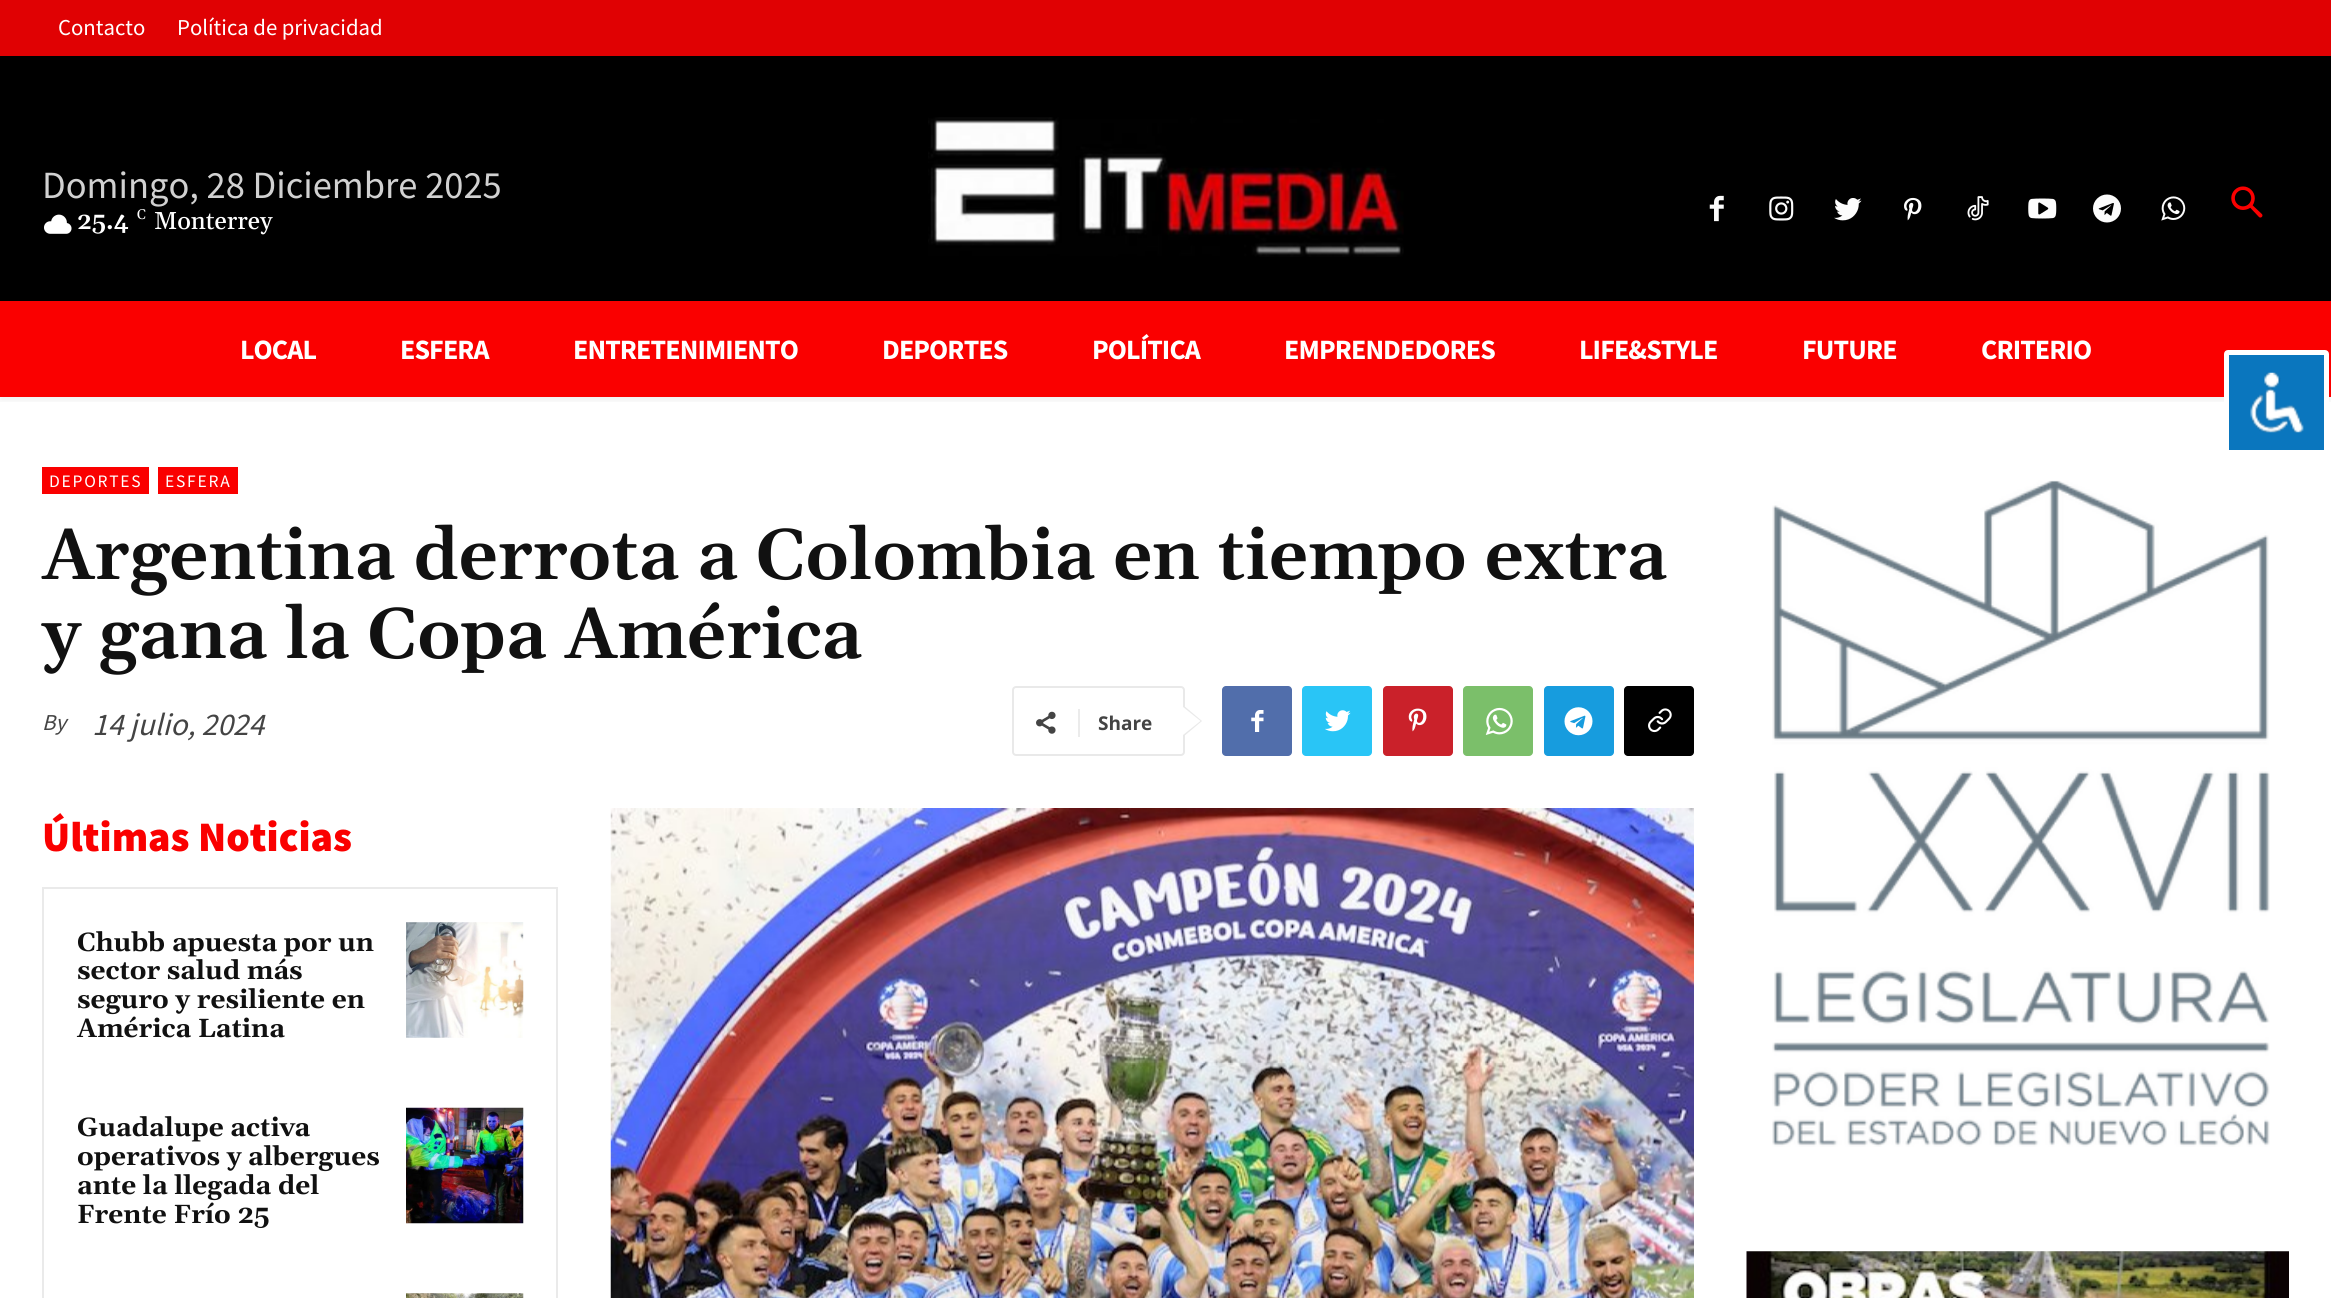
import math
import cairo



def draw_spaced(context, x, y, s, letter, word):
    context.move_to(x, y)
    for ch in s:
        context.show_text(ch)
        context.rel_move_to(letter + word * (ch == ' '), 0)


def rounded_rect(context, x, y, w, h, r):
    context.new_sub_path()
    for i, (u, v) in enumerate([(x + w - r, y + h - r), (x + r, y + h - r), (x + r, y + r), (x + w - r, y + r)]):
        context.arc(u, v, r, i * math.pi / 2, (i + 1) * math.pi / 2)
    context.close_path()


def draw_shadow(context, x, y, w, h, r, blur, alpha):
    context.push_group_with_content(cairo.Content.ALPHA)
    context.set_operator(cairo.Operator.SOURCE)
    for i in range(15, -16, -2):
        e = blur * i / 6
        if min(w, h) + 2 * e > 0:
            context.set_source_rgba(0, 0, 0, alpha * math.erfc((i - 1) / 8.5) / 2)
            rounded_rect(context, x - e, y - e, w + 2 * e, h + 2 * e, max(0, min(r + e + blur * .6, min(w, h) / 2 + e)))
            context.fill()
    context.mask(context.pop_group())


def draw_image(context, path, x, y, w, h):
    context.save()
    context.set_source_surface(cairo.ImageSurface.create_from_png(path), x, y)
    context.rectangle(x, y, w, h)
    context.fill()
    context.restore()


def draw(context):
    context.set_source_rgb(1, 1, 1)
    context.paint()
    context.set_source_rgb(224 / 255, 1 / 255, 3 / 255)
    context.rectangle(0, 0, 2331, 56)
    context.fill()
    context.set_source_rgb(0, 0, 0)
    context.rectangle(0, 56, 2331, 245)
    context.fill()
    draw_image(context, "images/1.png", 44, 214, 28, 20)
    draw_image(context, "images/2.png", 928, 117, 476, 140)
    draw_image(context, "images/3.png", 1709, 195, 15, 27)
    draw_image(context, "images/4.png", 1769, 196, 25, 25)
    draw_image(context, "images/5.png", 1834, 198, 28, 23)
    draw_image(context, "images/6.png", 1904, 197, 18, 24)
    draw_image(context, "images/7.png", 1967, 196, 22, 25)
    draw_image(context, "images/8.png", 2028, 198, 29, 21)
    draw_image(context, "images/9.png", 2093, 194, 28, 29)
    draw_image(context, "images/10.png", 2161, 196, 25, 25)
    draw_image(context, "images/11.png", 2231, 186, 32, 32)
    context.set_source_rgb(250 / 255, 0, 0)
    context.rectangle(0, 301, 2331, 96)
    context.fill()
    context.save()
    context.rectangle(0, 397, 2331, 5)
    context.clip()
    context.set_source_rgb(0, 0, 0)
    draw_shadow(context, 0, 305, 2331, 96, 0, 3.5, 0.06)
    context.restore()
    context.rectangle(42, 467, 107, 27)
    context.fill()
    context.rectangle(158, 467, 80, 27)
    context.fill()
    rounded_rect(context, 1013, 687, 171, 68, 3)
    context.set_source_rgb(233 / 255, 233 / 255, 233 / 255)
    context.stroke()
    context.new_path()
    context.move_to(1183, 737)
    context.line_to(1183, 705)
    context.line_to(1202, 721)
    context.close_path()
    context.fill()
    draw_image(context, "images/12.png", 1036, 711, 20, 23)
    context.set_source_rgb(235 / 255, 235 / 255, 235 / 255)
    context.rectangle(1078, 709, 2, 28)
    context.fill()
    context.set_source_rgb(1, 1, 1)
    context.new_path()
    context.move_to(1183, 735)
    context.line_to(1183, 707)
    context.line_to(1200.5, 721)
    context.close_path()
    context.fill()
    context.set_source_rgb(81 / 255, 110 / 255, 171 / 255)
    rounded_rect(context, 1222, 686, 70, 70, 4)
    context.fill()
    draw_image(context, "images/13.png", 1251, 710, 13, 22)
    context.set_source_rgb(41 / 255, 197 / 255, 246 / 255)
    rounded_rect(context, 1302, 686, 70, 70, 4)
    context.fill()
    draw_image(context, "images/14.png", 1325, 710, 26, 22)
    context.set_source_rgb(202 / 255, 33 / 255, 42 / 255)
    rounded_rect(context, 1383, 686, 70, 70, 4)
    context.fill()
    draw_image(context, "images/15.png", 1408, 708, 19, 24)
    context.set_source_rgb(123 / 255, 191 / 255, 106 / 255)
    rounded_rect(context, 1463, 686, 70, 70, 4)
    context.fill()
    draw_image(context, "images/16.png", 1485, 707, 28, 28)
    context.set_source_rgb(23 / 255, 156 / 255, 222 / 255)
    rounded_rect(context, 1544, 686, 70, 70, 4)
    context.fill()
    draw_image(context, "images/17.png", 1564, 707, 29, 29)
    context.set_source_rgb(0, 0, 0)
    rounded_rect(context, 1624, 686, 70, 70, 4)
    context.fill()
    draw_image(context, "images/18.png", 1648, 708, 24, 25)
    context.rectangle(43, 888, 514, 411)
    context.set_source_rgb(234 / 255, 234 / 255, 234 / 255)
    context.stroke()
    draw_image(context, "images/19.png", 406, 922, 118, 116)
    draw_image(context, "images/20.png", 406, 1107, 118, 117)
    draw_image(context, "images/21.png", 406, 1293, 118, 5)
    draw_image(context, "images/22.png", 610, 808, 1084, 490)
    draw_image(context, "images/23.png", 1772, 480, 498, 667)
    draw_image(context, "images/24.png", 1746, 1251, 543, 47)
    context.set_source_rgb(10 / 255, 118 / 255, 190 / 255)
    rounded_rect(context, 2226.5, 352.5, 100, 100, 1.5)
    context.fill_preserve()
    context.set_source_rgb(1, 1, 1)
    context.set_line_width(5)
    context.stroke()
    draw_image(context, "images/25.png", 2250, 372, 54, 61)
    context.select_font_face("Source Sans Pro")
    context.set_font_size(22.75)
    context.move_to(58, 35)
    context.show_text("Contacto")
    context.move_to(177, 35)
    context.show_text("Política de privacidad")
    context.set_font_size(38.5)
    context.set_source_rgb(209 / 255, 209 / 255, 209 / 255)
    context.move_to(42, 198)
    context.show_text("Domingo, 28 Diciembre 2025")
    context.select_font_face("Gelasio SemiBold")
    context.set_font_size(24.5)
    context.set_source_rgb(1, 1, 1)
    context.move_to(77, 229)
    context.show_text("25.4")
    context.select_font_face("Gelasio")
    context.set_font_size(14)
    context.move_to(137, 219)
    context.show_text("C")
    context.select_font_face("Gelasio Medium")
    context.set_font_size(24.5)
    context.move_to(154, 229)
    context.show_text("Monterrey")
    context.select_font_face("Source Sans Pro", cairo.FontSlant.NORMAL, cairo.FontWeight.BOLD)
    context.set_font_size(28)
    draw_spaced(context, 240, 359, "LOCAL", -0.9, 0)
    draw_spaced(context, 400, 359, "ESFERA", -0.9, 0)
    draw_spaced(context, 573, 359, "ENTRETENIMIENTO", -0.9, 0)
    draw_spaced(context, 882, 359, "DEPORTES", -0.9, 0)
    draw_spaced(context, 1092, 359, "POLÍTICA", -0.9, 0)
    draw_spaced(context, 1284, 359, "EMPRENDEDORES", -0.9, 0)
    draw_spaced(context, 1579, 359, "LIFE&STYLE", -0.9, 0)
    draw_spaced(context, 1802, 359, "FUTURE", -0.9, 0)
    draw_spaced(context, 1981, 359, "CRITERIO", -0.9, 0)
    context.select_font_face("Source Sans Pro")
    context.set_font_size(17.5)
    draw_spaced(context, 49, 487, "DEPORTES", 1.75, 0)
    draw_spaced(context, 165, 487, "ESFERA", 1.75, 0)
    context.select_font_face("Gelasio SemiBold")
    context.set_font_size(71.75)
    context.set_source_rgb(17 / 255, 17 / 255, 17 / 255)
    context.move_to(42, 579)
    context.show_text("Argentina derrota a Colombia en tiempo extra")
    context.move_to(42, 658)
    context.show_text("y gana la Copa América")
    context.select_font_face("Source Sans Pro", cairo.FontSlant.ITALIC)
    context.set_font_size(22.75)
    context.set_source_rgb(68 / 255, 68 / 255, 68 / 255)
    context.move_to(42, 730)
    context.show_text("By")
    context.set_font_size(31.5)
    context.move_to(92, 735)
    context.show_text("14 julio, 2024")
    context.select_font_face("Open Sans", cairo.FontSlant.NORMAL, cairo.FontWeight.BOLD)
    context.set_font_size(19)
    context.move_to(1098, 730)
    context.show_text("Share")
    context.select_font_face("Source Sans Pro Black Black")
    context.set_font_size(42)
    context.set_source_rgb(250 / 255, 0, 0)
    context.move_to(42, 851)
    context.show_text("Últimas Noticias")
    context.select_font_face("Gelasio", cairo.FontSlant.NORMAL, cairo.FontWeight.BOLD)
    context.set_font_size(26.25)
    context.set_source_rgb(17 / 255, 17 / 255, 17 / 255)
    context.move_to(77, 951)
    context.show_text("Chubb apuesta por un")
    context.move_to(77, 979)
    context.show_text("sector salud más")
    context.move_to(77, 1008)
    context.show_text("seguro y resiliente en")
    context.move_to(77, 1037)
    context.show_text("América Latina")
    context.move_to(77, 1136)
    context.show_text("Guadalupe activa")
    context.move_to(77, 1165)
    context.show_text("operativos y albergues")
    context.move_to(77, 1194)
    context.show_text("ante la llegada del")
    context.move_to(77, 1223)
    context.show_text("Frente Frío 25")


surface = cairo.ImageSurface(cairo.Format.RGB24, 2331, 1298)
context = cairo.Context(surface)
options = cairo.FontOptions()
options.set_hint_metrics(cairo.HintMetrics.OFF)
options.set_hint_style(cairo.HintStyle.NONE)
context.set_font_options(options)
context.set_miter_limit(4)
draw(context)
surface.write_to_png("out.png")
